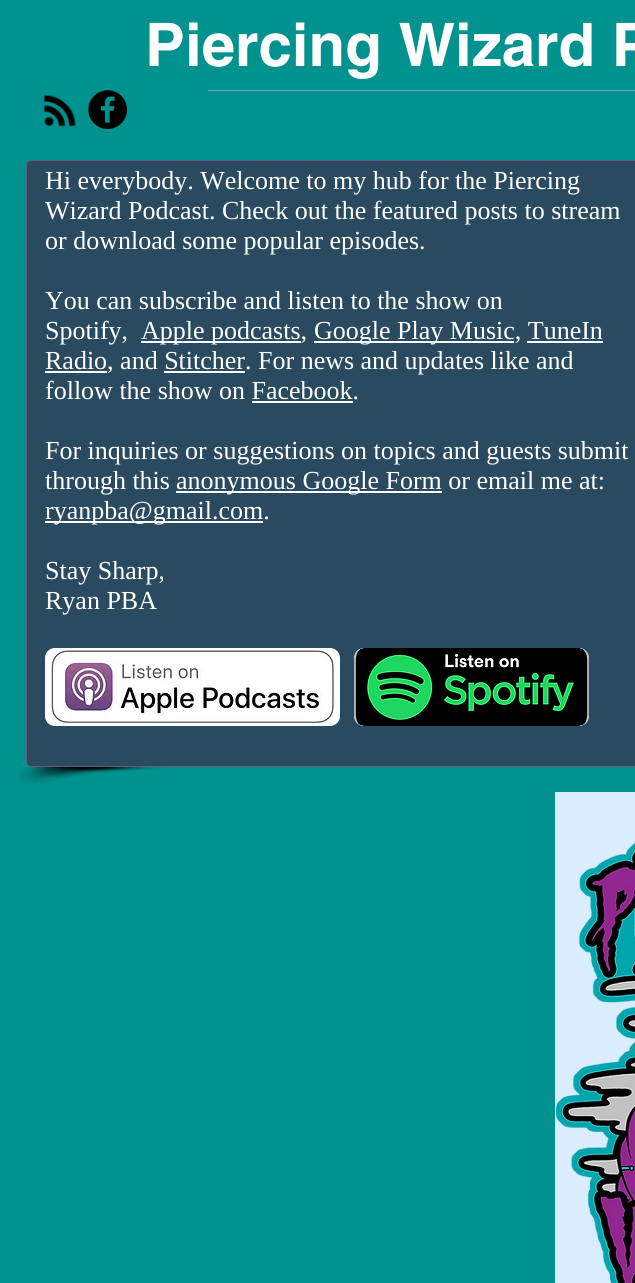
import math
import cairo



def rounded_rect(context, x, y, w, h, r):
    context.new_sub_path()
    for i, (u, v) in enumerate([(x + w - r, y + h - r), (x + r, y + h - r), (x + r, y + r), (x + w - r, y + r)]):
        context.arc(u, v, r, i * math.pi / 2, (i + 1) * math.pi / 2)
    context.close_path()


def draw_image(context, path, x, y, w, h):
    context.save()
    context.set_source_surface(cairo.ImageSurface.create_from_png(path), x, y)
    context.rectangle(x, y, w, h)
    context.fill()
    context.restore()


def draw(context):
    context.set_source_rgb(0, 146 / 255, 143 / 255)
    context.paint()
    draw_image(context, "images/1.png", 88, 90, 39, 39)
    context.set_source_rgb(110 / 255, 164 / 255, 202 / 255)
    context.rectangle(208, 90, 427, 1)
    context.fill()
    draw_image(context, "images/2.png", 43, 94, 33, 33)
    context.set_source_rgb(41 / 255, 74 / 255, 95 / 255)
    rounded_rect(context, 26.5, 160.5, 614, 606, 4.5)
    context.fill_preserve()
    context.set_source_rgb(97 / 255, 93 / 255, 123 / 255)
    context.set_line_width(1)
    context.stroke()
    context.set_source_rgb(1, 1, 1)
    context.rectangle(141, 341, 160, 2)
    context.fill()
    context.rectangle(314, 341, 200, 2)
    context.fill()
    context.rectangle(527, 341, 76, 2)
    context.fill()
    context.rectangle(45, 371, 62, 2)
    context.fill()
    context.rectangle(164, 371, 81, 2)
    context.fill()
    context.rectangle(252, 401, 101, 2)
    context.fill()
    context.rectangle(176, 491, 266, 2)
    context.fill()
    context.rectangle(45, 521, 218, 2)
    context.fill()
    context.set_source_rgb(218 / 255, 237 / 255, 1)
    rounded_rect(context, 45, 648, 295, 78, 10)
    context.fill()
    draw_image(context, "images/3.png", 45, 648, 295, 78)
    rounded_rect(context, 354, 648, 235, 78, 10)
    context.fill()
    draw_image(context, "images/4.png", 354, 648, 235, 78)
    draw_image(context, "images/5.png", 18, 767, 148, 17)
    context.rectangle(555, 792, 80, 491)
    context.fill()
    draw_image(context, "images/6.png", 555, 843, 80, 440)
    context.select_font_face("helvetica", cairo.FontSlant.NORMAL, cairo.FontWeight.BOLD)
    context.set_font_size(60)
    context.set_source_rgb(1, 1, 1)
    context.move_to(145, 66)
    context.show_text("Piercing Wizard P")
    context.select_font_face("Liberation Serif")
    context.set_font_size(26)
    context.move_to(45, 189)
    context.show_text("Hi everybody. Welcome to my hub for the Piercing")
    context.move_to(45, 219)
    context.show_text("Wizard Podcast. Check out the featured posts to stream")
    context.move_to(45, 249)
    context.show_text("or download some popular episodes.")
    context.move_to(45, 309)
    context.show_text("You can subscribe and listen to the show on")
    context.move_to(45, 339)
    context.show_text("Spotify,")
    context.move_to(141, 339)
    context.show_text("Apple podcasts,")
    context.move_to(314, 339)
    context.show_text("Google Play Music, TuneIn")
    context.move_to(45, 369)
    context.show_text("Radio, and Stitcher. For news and updates like and")
    context.move_to(45, 399)
    context.show_text("follow the show on Facebook.")
    context.move_to(45, 459)
    context.show_text("For inquiries or suggestions on topics and guests submit")
    context.move_to(45, 489)
    context.show_text("through this")
    context.move_to(176, 489)
    context.show_text("anonymous Google Form or email me at:")
    context.move_to(45, 519)
    context.show_text("ryanpba@gmail.com.")
    context.move_to(45, 579)
    context.show_text("Stay Sharp,")
    context.move_to(45, 609)
    context.show_text("Ryan PBA")


surface = cairo.ImageSurface(cairo.Format.RGB24, 635, 1283)
context = cairo.Context(surface)
options = cairo.FontOptions()
options.set_hint_metrics(cairo.HintMetrics.OFF)
options.set_hint_style(cairo.HintStyle.NONE)
context.set_font_options(options)
context.set_miter_limit(4)
draw(context)
surface.write_to_png("out.png")
